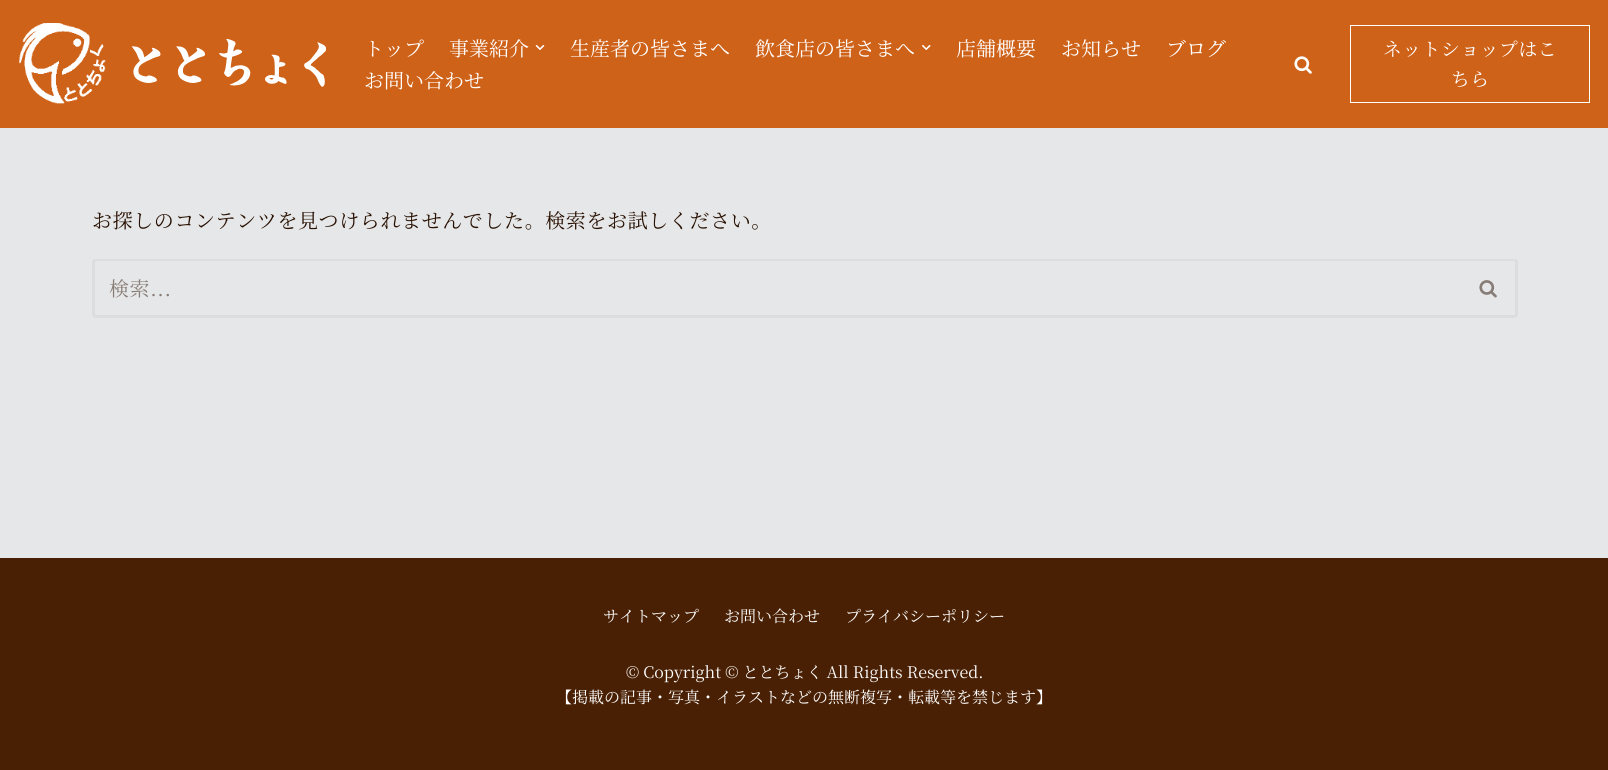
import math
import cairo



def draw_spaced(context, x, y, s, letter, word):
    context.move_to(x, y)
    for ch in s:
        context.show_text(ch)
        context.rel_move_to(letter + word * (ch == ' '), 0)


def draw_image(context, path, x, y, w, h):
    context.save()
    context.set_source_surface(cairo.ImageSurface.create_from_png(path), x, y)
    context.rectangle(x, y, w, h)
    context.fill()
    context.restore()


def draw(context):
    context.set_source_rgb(230 / 255, 231 / 255, 232 / 255)
    context.paint()
    context.set_source_rgb(207 / 255, 98 / 255, 25 / 255)
    context.rectangle(0, 0, 1608, 128)
    context.fill()
    draw_image(context, "images/1.png", 19, 23, 307, 81)
    draw_image(context, "images/2.png", 535, 45, 10, 5)
    draw_image(context, "images/3.png", 922, 45, 9, 5)
    draw_image(context, "images/4.png", 1294, 56, 18, 18)
    context.rectangle(1350.5, 25.5, 239, 77)
    context.set_source_rgb(1, 1, 1)
    context.set_line_width(1)
    context.stroke()
    context.set_source_rgb(221 / 255, 221 / 255, 221 / 255)
    context.set_fill_rule(cairo.FillRule.EVEN_ODD)
    context.new_path()
    context.move_to(96, 259)
    context.line_to(1461, 259)
    context.line_to(1461, 318)
    context.line_to(96, 318)
    context.curve_to(94, 318, 92, 316, 92, 314)
    context.line_to(92, 262)
    context.curve_to(92, 260, 94, 259, 96, 259)
    context.close_path()
    context.move_to(96, 261)
    context.line_to(1461, 261)
    context.line_to(1461, 315)
    context.line_to(96, 315)
    context.curve_to(96, 315, 95, 314, 95, 314)
    context.line_to(95, 262)
    context.curve_to(95, 262, 96, 261, 96, 261)
    context.close_path()
    context.fill()
    context.new_path()
    context.move_to(1461, 259)
    context.line_to(1514, 259)
    context.curve_to(1516, 259, 1518, 260, 1518, 262)
    context.line_to(1518, 314)
    context.curve_to(1518, 316, 1516, 318, 1514, 318)
    context.line_to(1461, 318)
    context.close_path()
    context.move_to(1461, 261)
    context.line_to(1514, 261)
    context.curve_to(1514, 261, 1515, 262, 1515, 262)
    context.line_to(1515, 314)
    context.curve_to(1515, 314, 1514, 315, 1514, 315)
    context.line_to(1461, 315)
    context.close_path()
    context.fill()
    draw_image(context, "images/5.png", 1479, 280, 18, 18)
    context.set_source_rgb(73 / 255, 32 / 255, 4 / 255)
    context.rectangle(0, 558, 1608, 212)
    context.fill()
    context.select_font_face("Noto Serif JP")
    context.set_font_size(20)
    context.set_source_rgb(1, 1, 1)
    context.move_to(364, 56)
    context.show_text("トップ")
    context.move_to(449, 56)
    context.show_text("事業紹介")
    context.move_to(570, 56)
    context.show_text("生産者の皆さまへ")
    context.move_to(755, 56)
    context.show_text("飲食店の皆さまへ")
    context.move_to(956, 56)
    context.show_text("店舗概要")
    context.move_to(1061, 56)
    context.show_text("お知らせ")
    context.move_to(1166, 56)
    context.show_text("ブログ")
    context.move_to(364, 88)
    context.show_text("お問い合わせ")
    context.set_font_size(18.75)
    draw_spaced(context, 1383, 56, "ネットショップはこ", 0.6, 0)
    draw_spaced(context, 1451, 86, "ちら", 0.6, 0)
    context.set_font_size(20)
    context.set_source_rgb(41 / 255, 18 / 255, 4 / 255)
    draw_spaced(context, 92, 228, "お探しのコンテンツを見つけられませんでした。検索をお試しください。", 0.6, 0)
    context.set_source_rgb(136 / 255, 125 / 255, 118 / 255)
    draw_spaced(context, 109, 296, "検索...", 0.6, 0)
    context.set_font_size(16)
    context.set_source_rgb(1, 1, 1)
    context.move_to(603, 622)
    context.show_text("サイトマップ")
    context.move_to(724, 622)
    context.show_text("お問い合わせ")
    context.move_to(845, 622)
    context.show_text("プライバシーポリシー")
    context.move_to(626, 678)
    context.show_text("© Copyright © ととちょく All Rights Reserved.")
    context.move_to(556, 703)
    context.show_text("【掲載の記事・写真・イラストなどの無断複写・転載等を禁じます】")


surface = cairo.ImageSurface(cairo.Format.RGB24, 1608, 770)
context = cairo.Context(surface)
options = cairo.FontOptions()
options.set_hint_metrics(cairo.HintMetrics.OFF)
options.set_hint_style(cairo.HintStyle.NONE)
context.set_font_options(options)
context.set_miter_limit(4)
draw(context)
surface.write_to_png("out.png")
